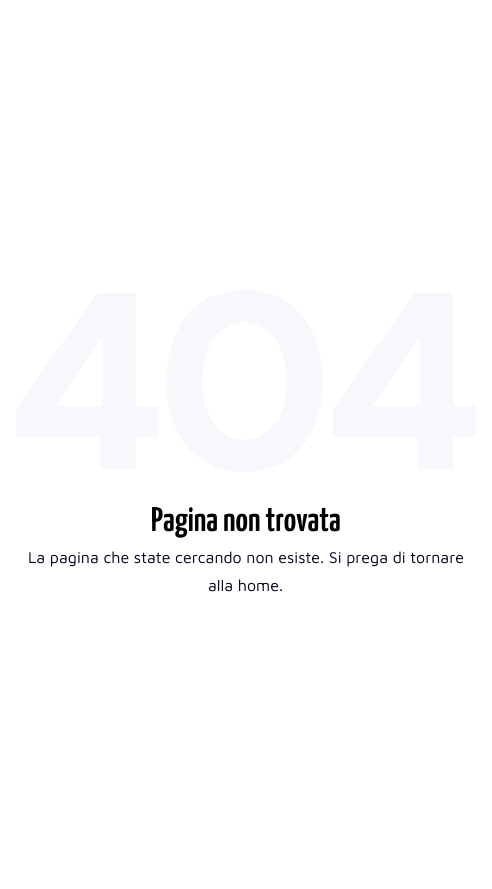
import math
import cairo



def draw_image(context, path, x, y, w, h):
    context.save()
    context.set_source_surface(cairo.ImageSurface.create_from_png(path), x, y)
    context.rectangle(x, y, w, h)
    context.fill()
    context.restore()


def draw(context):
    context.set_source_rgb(1, 1, 1)
    context.paint()
    draw_image(context, "images/1.png", 16, 290, 460, 182)
    context.select_font_face("Yanone Kaffeesatz ExtraLight")
    context.set_font_size(34)
    context.set_source_rgb(0, 0, 0)
    context.move_to(151, 531)
    context.show_text("Pagina non trovata")
    context.select_font_face("Maven Pro")
    context.set_font_size(16)
    context.set_source_rgb(0, 1 / 255, 24 / 255)
    context.move_to(28, 563)
    context.show_text("La pagina che state cercando non esiste. Si prega di tornare")
    context.move_to(208, 591)
    context.show_text("alla home.")


surface = cairo.ImageSurface(cairo.Format.RGB24, 492, 889)
context = cairo.Context(surface)
options = cairo.FontOptions()
options.set_hint_metrics(cairo.HintMetrics.OFF)
options.set_hint_style(cairo.HintStyle.NONE)
context.set_font_options(options)
context.set_miter_limit(4)
draw(context)
surface.write_to_png("out.png")
